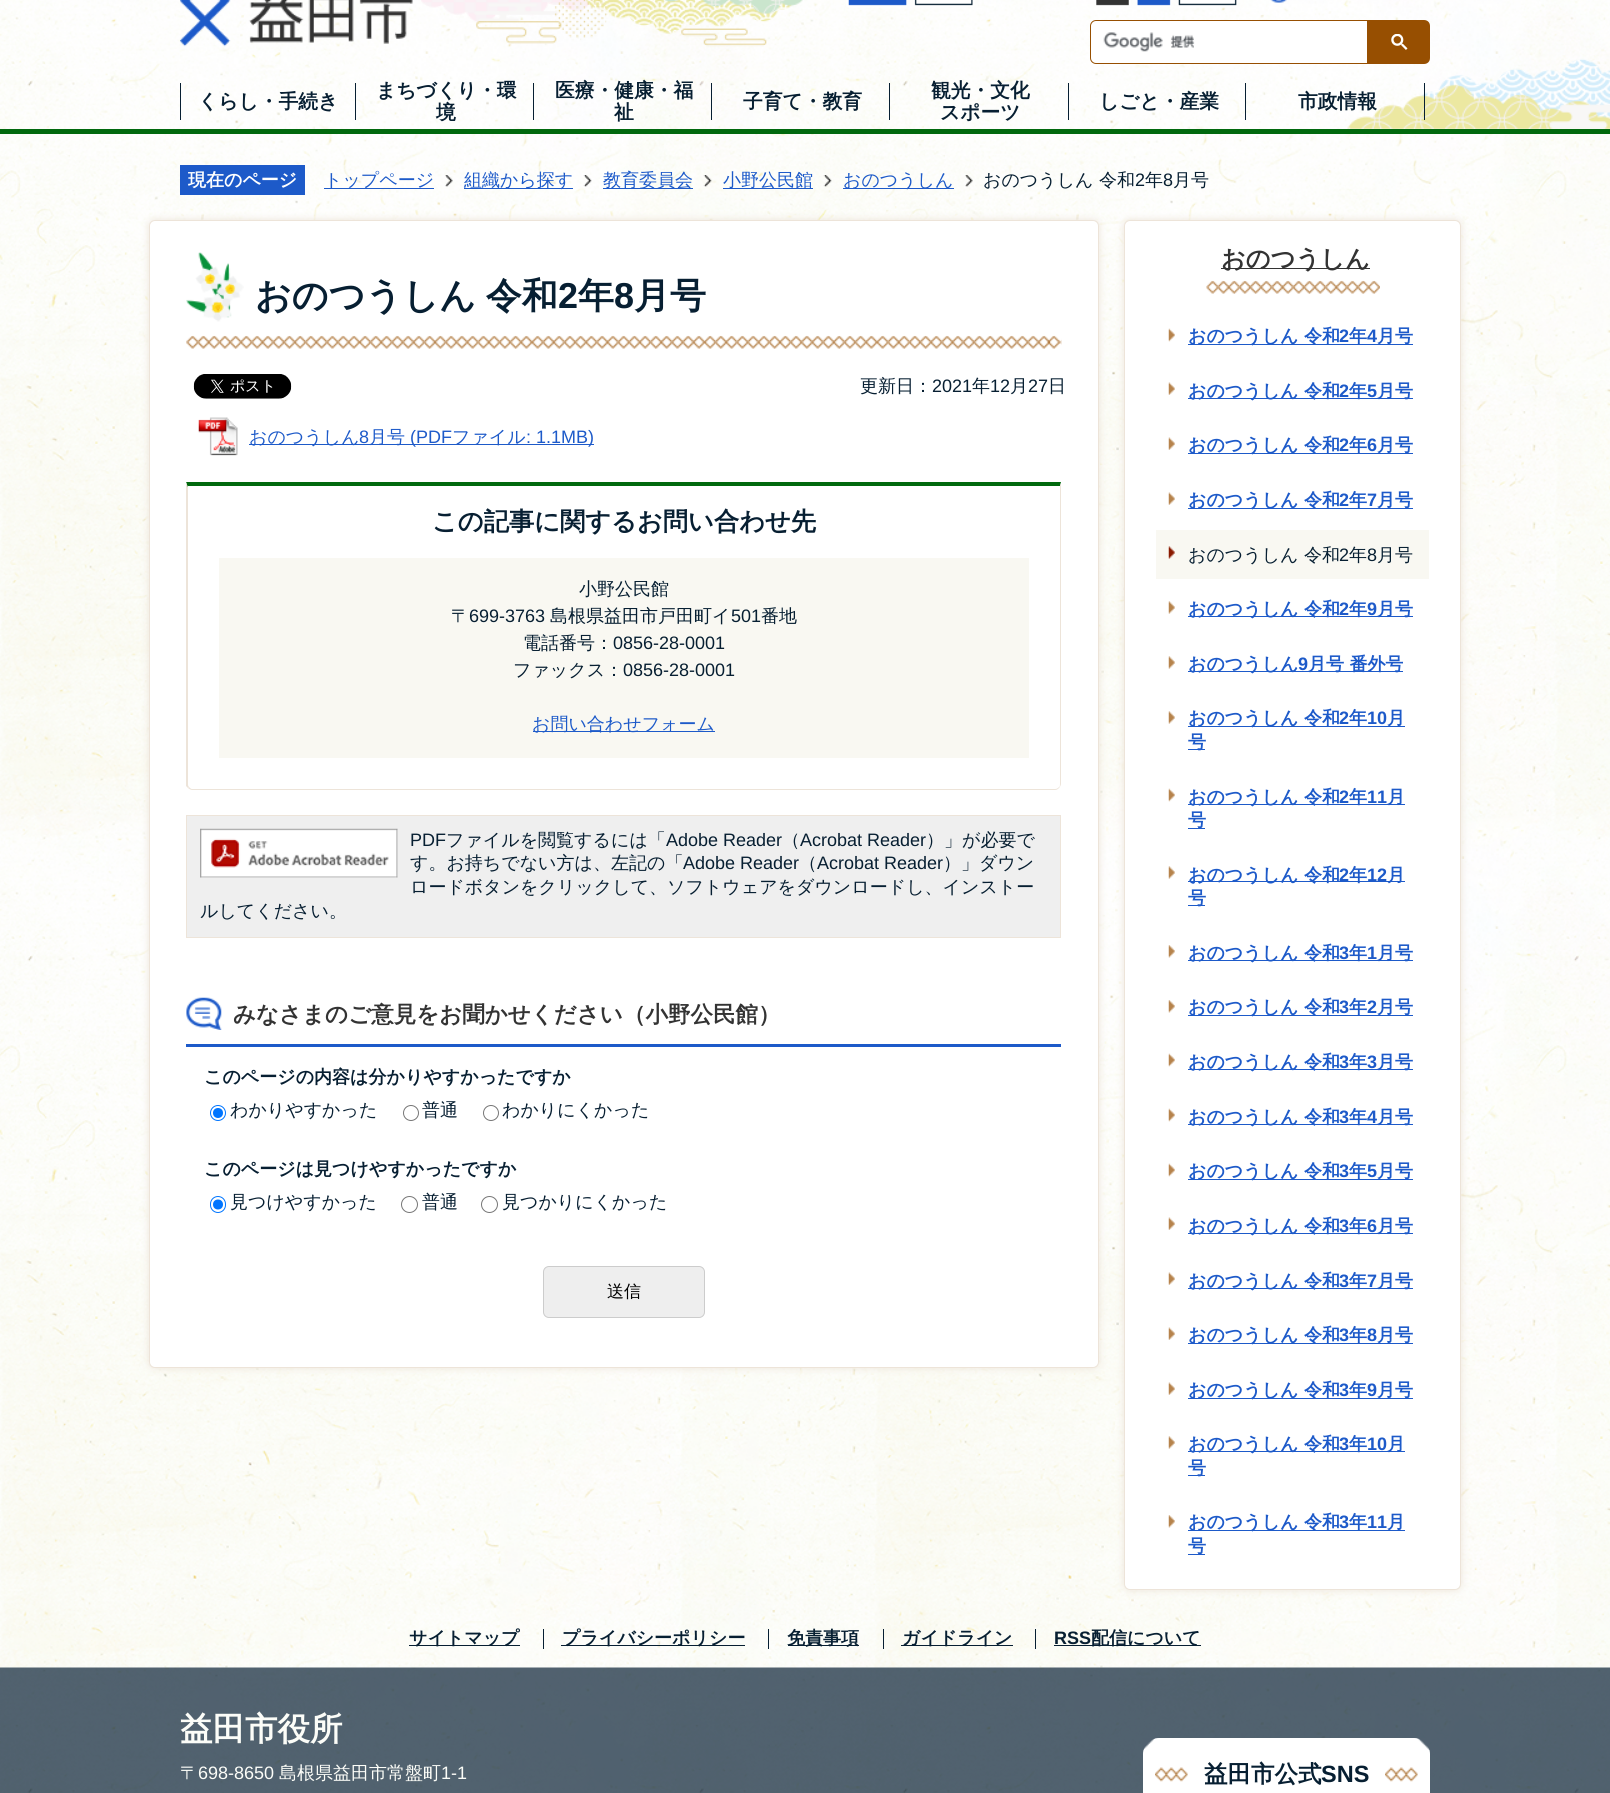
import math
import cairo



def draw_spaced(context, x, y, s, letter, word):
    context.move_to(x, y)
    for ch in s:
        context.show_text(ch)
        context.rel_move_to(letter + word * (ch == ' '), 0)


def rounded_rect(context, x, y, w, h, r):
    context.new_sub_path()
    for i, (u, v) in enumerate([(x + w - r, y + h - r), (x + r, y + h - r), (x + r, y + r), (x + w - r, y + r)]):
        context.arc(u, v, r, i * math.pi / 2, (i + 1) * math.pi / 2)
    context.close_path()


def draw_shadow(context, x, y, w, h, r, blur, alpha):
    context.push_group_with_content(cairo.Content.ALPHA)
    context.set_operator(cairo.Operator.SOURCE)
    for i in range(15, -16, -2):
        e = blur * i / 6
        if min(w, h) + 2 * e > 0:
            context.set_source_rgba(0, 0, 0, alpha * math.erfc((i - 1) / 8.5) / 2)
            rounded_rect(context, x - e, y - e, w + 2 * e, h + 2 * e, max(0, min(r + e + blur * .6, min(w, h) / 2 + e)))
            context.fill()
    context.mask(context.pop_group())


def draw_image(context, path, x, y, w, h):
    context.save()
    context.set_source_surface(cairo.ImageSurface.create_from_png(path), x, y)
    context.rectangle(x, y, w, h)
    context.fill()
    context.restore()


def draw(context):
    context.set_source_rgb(1, 1, 1)
    context.paint()
    draw_image(context, "images/1.png", 0, 0, 1610, 1668)
    draw_image(context, "images/2.png", 421, 0, 1189, 129)
    context.set_source_rgb(1 / 255, 105 / 255, 14 / 255)
    context.rectangle(0, 129, 1610, 5)
    context.fill()
    draw_image(context, "images/3.png", 180, 0, 233, 47)
    draw_image(context, "images/4.png", 846, 0, 61, 8)
    draw_image(context, "images/5.png", 913, 0, 62, 7)
    draw_image(context, "images/6.png", 1096, 0, 35, 7)
    draw_image(context, "images/7.png", 1137, 0, 34, 7)
    draw_image(context, "images/8.png", 1178, 0, 59, 8)
    draw_image(context, "images/9.png", 1270, 0, 17, 3)
    context.set_source_rgb(1, 1, 1)
    context.new_path()
    context.move_to(1096, 20.5)
    context.line_to(1367.5, 20.5)
    context.line_to(1367.5, 63.5)
    context.line_to(1096, 63.5)
    context.curve_to(1093, 63.5, 1090.5, 61, 1090.5, 58)
    context.line_to(1090.5, 26)
    context.curve_to(1090.5, 23, 1093, 20.5, 1096, 20.5)
    context.close_path()
    context.fill_preserve()
    context.set_source_rgb(151 / 255, 79 / 255, 1 / 255)
    context.set_line_width(1)
    context.stroke()
    draw_image(context, "images/10.png", 1103, 32, 92, 20)
    context.new_path()
    context.move_to(1368, 20)
    context.line_to(1424, 20)
    context.curve_to(1427.5, 20, 1430, 22.5, 1430, 26)
    context.line_to(1430, 58)
    context.curve_to(1430, 61.5, 1427.5, 64, 1424, 64)
    context.line_to(1368, 64)
    context.close_path()
    context.fill()
    draw_image(context, "images/11.png", 1391, 34, 17, 16)
    context.set_source_rgb(7 / 255, 31 / 255, 50 / 255)
    context.rectangle(180, 83, 1, 37)
    context.fill()
    context.rectangle(355, 83, 1, 37)
    context.fill()
    context.rectangle(533, 83, 1, 37)
    context.fill()
    context.rectangle(711, 83, 1, 37)
    context.fill()
    context.rectangle(889, 83, 1, 37)
    context.fill()
    context.rectangle(1068, 83, 1, 37)
    context.fill()
    context.rectangle(1245, 83, 1, 37)
    context.fill()
    context.rectangle(1424, 83, 1, 37)
    context.fill()
    context.set_source_rgb(29 / 255, 90 / 255, 201 / 255)
    context.rectangle(180, 165, 125, 30)
    context.fill()
    context.rectangle(324, 188, 110, 1)
    context.fill()
    draw_image(context, "images/12.png", 445, 175, 8, 12)
    context.rectangle(464, 188, 109, 1)
    context.fill()
    draw_image(context, "images/13.png", 583, 175, 9, 12)
    context.rectangle(603, 188, 90, 1)
    context.fill()
    draw_image(context, "images/14.png", 703, 175, 9, 12)
    context.rectangle(723, 188, 90, 1)
    context.fill()
    draw_image(context, "images/15.png", 823, 175, 9, 12)
    context.rectangle(843, 188, 111, 1)
    context.fill()
    draw_image(context, "images/16.png", 965, 175, 8, 12)
    context.set_source_rgb(237 / 255, 228 / 255, 217 / 255)
    draw_shadow(context, 149, 220, 950, 1148, 6, 4, 1)
    context.set_source_rgb(1, 1, 1)
    rounded_rect(context, 149.5, 220.5, 949, 1147, 5.5)
    context.fill_preserve()
    context.set_source_rgb(237 / 255, 228 / 255, 217 / 255)
    context.stroke()
    draw_image(context, "images/17.png", 186, 335, 876, 14)
    draw_image(context, "images/18.png", 186, 252, 58, 70)
    draw_image(context, "images/19.png", 193, 374, 99, 25)
    draw_image(context, "images/20.png", 198, 417, 40, 39)
    context.set_source_rgb(29 / 255, 90 / 255, 201 / 255)
    context.rectangle(249, 444, 345, 1)
    context.fill()
    context.set_source_rgb(1 / 255, 105 / 255, 14 / 255)
    context.new_path()
    context.move_to(188, 486)
    context.line_to(188, 488)
    context.line_to(186, 482)
    context.line_to(1061, 482)
    context.line_to(1060, 486)
    context.close_path()
    context.fill()
    context.set_source_rgb(237 / 255, 228 / 255, 217 / 255)
    context.new_path()
    context.move_to(1061, 483)
    context.line_to(1061, 784)
    context.curve_to(1061, 785, 1060, 787, 1059, 788)
    context.line_to(1059, 787)
    context.curve_to(1060, 787, 1060, 785, 1060, 784)
    context.line_to(1060, 486)
    context.close_path()
    context.fill()
    context.new_path()
    context.move_to(192, 790)
    context.line_to(1055, 790)
    context.curve_to(1057, 790, 1058, 789, 1059, 788)
    context.line_to(1059, 787)
    context.curve_to(1058, 788, 1057, 789, 1055, 789)
    context.line_to(192, 789)
    context.curve_to(191, 789, 190, 788, 189, 787)
    context.line_to(188, 788)
    context.curve_to(189, 789, 191, 790, 192, 790)
    context.close_path()
    context.fill()
    context.new_path()
    context.move_to(188, 788)
    context.line_to(186, 786)
    context.line_to(186, 482)
    context.line_to(188, 488)
    context.line_to(188, 784)
    context.curve_to(188, 785, 188, 786, 189, 787)
    context.close_path()
    context.fill()
    context.set_source_rgb(249 / 255, 248 / 255, 242 / 255)
    context.rectangle(219, 558, 810, 200)
    context.fill()
    context.set_source_rgb(29 / 255, 90 / 255, 201 / 255)
    context.rectangle(533, 731, 182, 1)
    context.fill()
    context.set_source_rgb(239 / 255, 239 / 255, 239 / 255)
    context.rectangle(186.5, 815.5, 874, 122)
    context.fill_preserve()
    context.set_source_rgb(237 / 255, 228 / 255, 217 / 255)
    context.stroke()
    draw_image(context, "images/21.png", 200, 828, 198, 50)
    draw_image(context, "images/22.png", 186, 997, 36, 33)
    context.set_source_rgb(29 / 255, 90 / 255, 201 / 255)
    context.rectangle(186, 1044, 875, 3)
    context.fill()
    context.arc(218, 1113, 7.5, 0, 2 * math.pi)
    context.set_source_rgb(0, 117 / 255, 1)
    context.stroke()
    context.arc(218, 1113, 5, 0, 2 * math.pi)
    context.fill()
    context.arc(411, 1113, 7.5, 0, 2 * math.pi)
    context.set_source_rgb(118 / 255, 118 / 255, 118 / 255)
    context.stroke()
    context.arc(491, 1113, 7.5, 0, 2 * math.pi)
    context.stroke()
    rounded_rect(context, 210.5, 1196.5, 15, 16, 7.5)
    context.set_source_rgb(0, 117 / 255, 1)
    context.stroke()
    context.arc(218, 1204.5, 5, 0, 2 * math.pi)
    context.fill()
    context.arc(409.5, 1204.5, 8, 0, 2 * math.pi)
    context.set_source_rgb(118 / 255, 118 / 255, 118 / 255)
    context.stroke()
    context.arc(489.5, 1204.5, 8, 0, 2 * math.pi)
    context.stroke()
    context.set_source_rgb(238 / 255, 238 / 255, 238 / 255)
    rounded_rect(context, 543.5, 1266.5, 161, 51, 5.5)
    context.fill_preserve()
    context.set_source_rgb(204 / 255, 204 / 255, 204 / 255)
    context.stroke()
    context.set_source_rgb(237 / 255, 228 / 255, 217 / 255)
    draw_shadow(context, 1124, 220, 337, 1370, 6, 4, 1)
    context.set_source_rgb(1, 1, 1)
    rounded_rect(context, 1124.5, 220.5, 336, 1369, 5.5)
    context.fill_preserve()
    context.set_source_rgb(237 / 255, 228 / 255, 217 / 255)
    context.stroke()
    draw_image(context, "images/23.png", 1206, 280, 174, 14)
    context.set_source_rgb(51 / 255, 51 / 255, 51 / 255)
    context.rectangle(1221, 268, 149, 1)
    context.fill()
    draw_image(context, "images/24.png", 1168, 328, 7, 14)
    context.set_source_rgb(29 / 255, 90 / 255, 201 / 255)
    context.rectangle(1188, 344, 225, 1)
    context.fill()
    draw_image(context, "images/25.png", 1168, 382, 7, 13)
    context.rectangle(1188, 398, 225, 1)
    context.fill()
    draw_image(context, "images/25.png", 1168, 437, 7, 13)
    context.rectangle(1188, 453, 225, 1)
    context.fill()
    draw_image(context, "images/25.png", 1168, 492, 7, 13)
    context.rectangle(1188, 508, 225, 1)
    context.fill()
    context.set_source_rgb(249 / 255, 248 / 255, 242 / 255)
    context.rectangle(1156, 530, 273, 49)
    context.fill()
    draw_image(context, "images/26.png", 1168, 546, 7, 13)
    draw_image(context, "images/27.png", 1168, 601, 7, 13)
    context.set_source_rgb(29 / 255, 90 / 255, 201 / 255)
    context.rectangle(1188, 616, 225, 1)
    context.fill()
    draw_image(context, "images/27.png", 1168, 656, 7, 13)
    context.rectangle(1188, 671, 215, 1)
    context.fill()
    draw_image(context, "images/27.png", 1168, 711, 7, 13)
    context.rectangle(1188, 726, 217, 1)
    context.fill()
    context.rectangle(1188, 749, 17, 1)
    context.fill()
    draw_image(context, "images/24.png", 1168, 788, 7, 14)
    context.rectangle(1188, 804, 217, 1)
    context.fill()
    context.rectangle(1188, 828, 17, 1)
    context.fill()
    draw_image(context, "images/27.png", 1168, 866, 7, 13)
    context.rectangle(1188, 881, 217, 1)
    context.fill()
    context.rectangle(1188, 905, 17, 1)
    context.fill()
    draw_image(context, "images/28.png", 1168, 945, 7, 13)
    context.rectangle(1188, 960, 225, 1)
    context.fill()
    draw_image(context, "images/28.png", 1168, 1000, 7, 13)
    context.rectangle(1188, 1015, 225, 1)
    context.fill()
    draw_image(context, "images/24.png", 1168, 1053, 7, 14)
    context.rectangle(1188, 1069, 225, 1)
    context.fill()
    draw_image(context, "images/24.png", 1168, 1108, 7, 14)
    context.rectangle(1188, 1124, 225, 1)
    context.fill()
    draw_image(context, "images/24.png", 1168, 1163, 7, 14)
    context.rectangle(1188, 1179, 225, 1)
    context.fill()
    draw_image(context, "images/25.png", 1168, 1217, 7, 13)
    context.rectangle(1188, 1233, 225, 1)
    context.fill()
    draw_image(context, "images/25.png", 1168, 1272, 7, 13)
    context.rectangle(1188, 1288, 225, 1)
    context.fill()
    draw_image(context, "images/25.png", 1168, 1327, 7, 13)
    context.rectangle(1188, 1343, 225, 1)
    context.fill()
    draw_image(context, "images/25.png", 1168, 1382, 7, 13)
    context.rectangle(1188, 1398, 225, 1)
    context.fill()
    draw_image(context, "images/27.png", 1168, 1436, 7, 13)
    context.rectangle(1188, 1451, 217, 1)
    context.fill()
    context.rectangle(1188, 1475, 17, 1)
    context.fill()
    draw_image(context, "images/28.png", 1168, 1515, 7, 13)
    context.rectangle(1188, 1530, 217, 1)
    context.fill()
    context.rectangle(1188, 1554, 17, 1)
    context.fill()
    context.set_source_rgb(7 / 255, 31 / 255, 50 / 255)
    context.rectangle(409, 1645, 111, 1)
    context.fill()
    context.rectangle(543, 1629, 1, 20)
    context.fill()
    context.rectangle(561, 1645, 184, 1)
    context.fill()
    context.rectangle(768, 1629, 1, 20)
    context.fill()
    context.rectangle(788, 1645, 71, 1)
    context.fill()
    context.rectangle(883, 1629, 1, 20)
    context.fill()
    context.rectangle(901, 1645, 112, 1)
    context.fill()
    context.rectangle(1035, 1629, 1, 20)
    context.fill()
    context.rectangle(1054, 1645, 147, 1)
    context.fill()
    draw_image(context, "images/29.png", 0, 1667, 1610, 126)
    context.set_source_rgb(1, 1, 1)
    rounded_rect(context, 1143, 1738, 287, 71, 16)
    context.fill()
    draw_image(context, "images/30.png", 1143, 1738, 12, 12)
    draw_image(context, "images/31.png", 1417, 1738, 13, 12)
    draw_image(context, "images/32.png", 1155, 1767, 33, 15)
    draw_image(context, "images/33.png", 1385, 1767, 33, 15)
    context.select_font_face("WenQuanYi Zen Hei", cairo.FontSlant.NORMAL, cairo.FontWeight.BOLD)
    context.set_font_size(19.75)
    context.set_source_rgb(7 / 255, 31 / 255, 50 / 255)
    context.move_to(198, 108)
    context.show_text("くらし・手続き")
    context.move_to(376, 97)
    context.show_text("まちづくり・環")
    context.move_to(436, 119)
    context.show_text("境")
    context.move_to(555, 97)
    context.show_text("医療・健康・福")
    context.move_to(614, 119)
    context.show_text("祉")
    context.move_to(743, 108)
    context.show_text("子育て・教育")
    context.move_to(931, 97)
    context.show_text("観光・文化")
    context.move_to(940, 119)
    context.show_text("スポーツ")
    context.move_to(1099, 108)
    context.show_text("しごと・産業")
    context.move_to(1298, 108)
    context.show_text("市政情報")
    context.set_font_size(18)
    context.set_source_rgb(1, 1, 1)
    context.move_to(188, 186)
    context.show_text("現在のページ")
    context.select_font_face("WenQuanYi Zen Hei Medium")
    context.set_source_rgb(29 / 255, 90 / 255, 201 / 255)
    context.move_to(324, 186)
    context.show_text("トップページ")
    context.move_to(464, 186)
    context.show_text("組織から探す")
    context.move_to(603, 186)
    context.show_text("教育委員会")
    context.move_to(723, 186)
    context.show_text("小野公民館")
    context.move_to(843, 186)
    context.show_text("おのつうしん")
    context.set_source_rgb(7 / 255, 31 / 255, 50 / 255)
    context.move_to(983, 186)
    context.show_text("おのつうしん 令和")
    context.select_font_face("Liberation Sans")
    context.move_to(1135, 186)
    context.show_text("2")
    context.select_font_face("WenQuanYi Zen Hei Medium")
    context.move_to(1145, 186)
    context.show_text("年")
    context.select_font_face("Liberation Sans")
    context.move_to(1163, 186)
    context.show_text("8")
    context.select_font_face("WenQuanYi Zen Hei Medium")
    context.move_to(1173, 186)
    context.show_text("月号")
    context.select_font_face("WenQuanYi Zen Hei", cairo.FontSlant.NORMAL, cairo.FontWeight.BOLD)
    context.set_font_size(36)
    draw_spaced(context, 255, 308, "おのつうしん 令和", 0, -1)
    context.select_font_face("Liberation Sans", cairo.FontSlant.NORMAL, cairo.FontWeight.BOLD)
    context.move_to(558, 308)
    context.show_text("2")
    context.select_font_face("WenQuanYi Zen Hei", cairo.FontSlant.NORMAL, cairo.FontWeight.BOLD)
    context.move_to(578, 308)
    context.show_text("年")
    context.select_font_face("Liberation Sans", cairo.FontSlant.NORMAL, cairo.FontWeight.BOLD)
    context.move_to(614, 308)
    context.show_text("8")
    context.select_font_face("WenQuanYi Zen Hei", cairo.FontSlant.NORMAL, cairo.FontWeight.BOLD)
    context.move_to(634, 308)
    context.show_text("月号")
    context.select_font_face("WenQuanYi Zen Hei Medium")
    context.set_font_size(18)
    context.move_to(860, 392)
    context.show_text("更新日：")
    context.select_font_face("Liberation Sans")
    context.move_to(932, 392)
    context.show_text("2021")
    context.select_font_face("WenQuanYi Zen Hei Medium")
    context.move_to(972, 392)
    context.show_text("年")
    context.select_font_face("Liberation Sans")
    context.move_to(990, 392)
    context.show_text("12")
    context.select_font_face("WenQuanYi Zen Hei Medium")
    context.move_to(1010, 392)
    context.show_text("月")
    context.select_font_face("Liberation Sans")
    context.move_to(1028, 392)
    context.show_text("27")
    context.select_font_face("WenQuanYi Zen Hei Medium")
    context.move_to(1048, 392)
    context.show_text("日")
    context.set_source_rgb(29 / 255, 90 / 255, 201 / 255)
    context.move_to(249, 443)
    context.show_text("おのつうしん")
    context.select_font_face("Liberation Sans")
    context.move_to(359, 443)
    context.show_text("8")
    context.select_font_face("WenQuanYi Zen Hei Medium")
    context.move_to(369, 443)
    context.show_text("月号")
    context.select_font_face("Liberation Sans")
    context.move_to(410, 443)
    context.show_text("(PDF")
    context.select_font_face("WenQuanYi Zen Hei Medium")
    context.move_to(452, 443)
    context.show_text("ファイル")
    context.select_font_face("Liberation Sans")
    context.move_to(526, 443)
    context.show_text(": 1.1MB)")
    context.select_font_face("WenQuanYi Zen Hei", cairo.FontSlant.NORMAL, cairo.FontWeight.BOLD)
    context.set_font_size(25.25)
    context.set_source_rgb(7 / 255, 31 / 255, 50 / 255)
    context.move_to(432, 530)
    context.show_text("この記事に関するお問い合わせ先")
    context.select_font_face("WenQuanYi Zen Hei Medium")
    context.set_font_size(18)
    context.move_to(579, 595)
    context.show_text("小野公民館")
    context.move_to(451, 622)
    context.show_text("〒")
    context.select_font_face("Liberation Sans")
    context.move_to(469, 622)
    context.show_text("699-3763")
    context.select_font_face("WenQuanYi Zen Hei Medium")
    context.move_to(550, 622)
    context.show_text("島根県益田市戸田町イ")
    context.select_font_face("Liberation Sans")
    context.move_to(731, 622)
    context.show_text("501")
    context.select_font_face("WenQuanYi Zen Hei Medium")
    context.move_to(761, 622)
    context.show_text("番地")
    context.move_to(523, 649)
    context.show_text("電話番号：")
    context.select_font_face("Liberation Sans")
    context.move_to(613, 649)
    context.show_text("0856-28-0001")
    context.select_font_face("WenQuanYi Zen Hei Medium")
    context.move_to(513, 676)
    context.show_text("ファックス：")
    context.select_font_face("Liberation Sans")
    context.move_to(623, 676)
    context.show_text("0856-28-0001")
    context.select_font_face("WenQuanYi Zen Hei Medium")
    context.set_source_rgb(29 / 255, 90 / 255, 201 / 255)
    context.move_to(532, 730)
    context.show_text("お問い合わせフォーム")
    context.select_font_face("Liberation Sans")
    context.set_source_rgb(7 / 255, 31 / 255, 50 / 255)
    context.move_to(410, 846)
    context.show_text("PDF")
    context.select_font_face("WenQuanYi Zen Hei Medium")
    context.move_to(446, 846)
    context.show_text("ファイルを閲覧するには「")
    context.select_font_face("Liberation Sans")
    context.move_to(666, 846)
    context.show_text("Adobe Reader")
    context.select_font_face("WenQuanYi Zen Hei Medium")
    context.move_to(782, 846)
    context.show_text("（")
    context.select_font_face("Liberation Sans")
    context.move_to(800, 846)
    context.show_text("Acrobat Reader")
    context.select_font_face("WenQuanYi Zen Hei Medium")
    context.move_to(926, 846)
    context.show_text("）」が必要で")
    context.move_to(410, 869)
    context.show_text("す。お持ちでない方は、左記の「")
    context.select_font_face("Liberation Sans")
    context.move_to(683, 869)
    context.show_text("Adobe Reader")
    context.select_font_face("WenQuanYi Zen Hei Medium")
    context.move_to(799, 869)
    context.show_text("（")
    context.select_font_face("Liberation Sans")
    context.move_to(817, 869)
    context.show_text("Acrobat Reader")
    context.select_font_face("WenQuanYi Zen Hei Medium")
    context.move_to(943, 869)
    context.show_text("）」ダウン")
    context.move_to(410, 893)
    context.show_text("ロードボタンをクリックして、ソフトウェアをダウンロードし、インストー")
    context.move_to(200, 917)
    context.show_text("ルしてください。")
    context.select_font_face("WenQuanYi Zen Hei", cairo.FontSlant.NORMAL, cairo.FontWeight.BOLD)
    context.set_font_size(22.5)
    context.set_source_rgb(51 / 255, 51 / 255, 51 / 255)
    context.move_to(233, 1022)
    context.show_text("みなさまのご意見をお聞かせください（小野公民館）")
    context.set_font_size(18)
    context.set_source_rgb(7 / 255, 31 / 255, 50 / 255)
    context.move_to(204, 1083)
    context.show_text("このページの内容は分かりやすかったですか")
    context.select_font_face("WenQuanYi Zen Hei Medium")
    context.move_to(230, 1116)
    context.show_text("わかりやすかった")
    context.move_to(422, 1116)
    context.show_text("普通")
    context.move_to(502, 1116)
    context.show_text("わかりにくかった")
    context.select_font_face("WenQuanYi Zen Hei", cairo.FontSlant.NORMAL, cairo.FontWeight.BOLD)
    context.move_to(204, 1175)
    context.show_text("このページは見つけやすかったですか")
    context.select_font_face("WenQuanYi Zen Hei Medium")
    context.move_to(230, 1208)
    context.show_text("見つけやすかった")
    context.move_to(422, 1208)
    context.show_text("普通")
    context.move_to(502, 1208)
    context.show_text("見つかりにくかった")
    context.set_font_size(17)
    context.set_source_rgb(0, 0, 0)
    context.move_to(607, 1297)
    context.show_text("送信")
    context.select_font_face("WenQuanYi Zen Hei", cairo.FontSlant.NORMAL, cairo.FontWeight.BOLD)
    context.set_font_size(24.25)
    context.set_source_rgb(51 / 255, 51 / 255, 51 / 255)
    context.move_to(1221, 267)
    context.show_text("おのつうしん")
    context.set_font_size(18)
    context.set_source_rgb(29 / 255, 90 / 255, 201 / 255)
    context.move_to(1188, 342)
    context.show_text("おのつうしん 令和")
    context.select_font_face("Liberation Sans", cairo.FontSlant.NORMAL, cairo.FontWeight.BOLD)
    context.move_to(1339, 342)
    context.show_text("2")
    context.select_font_face("WenQuanYi Zen Hei", cairo.FontSlant.NORMAL, cairo.FontWeight.BOLD)
    context.move_to(1349, 342)
    context.show_text("年")
    context.select_font_face("Liberation Sans", cairo.FontSlant.NORMAL, cairo.FontWeight.BOLD)
    context.move_to(1367, 342)
    context.show_text("4")
    context.select_font_face("WenQuanYi Zen Hei", cairo.FontSlant.NORMAL, cairo.FontWeight.BOLD)
    context.move_to(1377, 342)
    context.show_text("月号")
    context.move_to(1188, 397)
    context.show_text("おのつうしん 令和")
    context.select_font_face("Liberation Sans", cairo.FontSlant.NORMAL, cairo.FontWeight.BOLD)
    context.move_to(1339, 397)
    context.show_text("2")
    context.select_font_face("WenQuanYi Zen Hei", cairo.FontSlant.NORMAL, cairo.FontWeight.BOLD)
    context.move_to(1349, 397)
    context.show_text("年")
    context.select_font_face("Liberation Sans", cairo.FontSlant.NORMAL, cairo.FontWeight.BOLD)
    context.move_to(1367, 397)
    context.show_text("5")
    context.select_font_face("WenQuanYi Zen Hei", cairo.FontSlant.NORMAL, cairo.FontWeight.BOLD)
    context.move_to(1377, 397)
    context.show_text("月号")
    context.move_to(1188, 451)
    context.show_text("おのつうしん 令和")
    context.select_font_face("Liberation Sans", cairo.FontSlant.NORMAL, cairo.FontWeight.BOLD)
    context.move_to(1339, 451)
    context.show_text("2")
    context.select_font_face("WenQuanYi Zen Hei", cairo.FontSlant.NORMAL, cairo.FontWeight.BOLD)
    context.move_to(1349, 451)
    context.show_text("年")
    context.select_font_face("Liberation Sans", cairo.FontSlant.NORMAL, cairo.FontWeight.BOLD)
    context.move_to(1367, 451)
    context.show_text("6")
    context.select_font_face("WenQuanYi Zen Hei", cairo.FontSlant.NORMAL, cairo.FontWeight.BOLD)
    context.move_to(1377, 451)
    context.show_text("月号")
    context.move_to(1188, 506)
    context.show_text("おのつうしん 令和")
    context.select_font_face("Liberation Sans", cairo.FontSlant.NORMAL, cairo.FontWeight.BOLD)
    context.move_to(1339, 506)
    context.show_text("2")
    context.select_font_face("WenQuanYi Zen Hei", cairo.FontSlant.NORMAL, cairo.FontWeight.BOLD)
    context.move_to(1349, 506)
    context.show_text("年")
    context.select_font_face("Liberation Sans", cairo.FontSlant.NORMAL, cairo.FontWeight.BOLD)
    context.move_to(1367, 506)
    context.show_text("7")
    context.select_font_face("WenQuanYi Zen Hei", cairo.FontSlant.NORMAL, cairo.FontWeight.BOLD)
    context.move_to(1377, 506)
    context.show_text("月号")
    context.select_font_face("WenQuanYi Zen Hei Medium")
    context.set_source_rgb(7 / 255, 31 / 255, 50 / 255)
    context.move_to(1188, 561)
    context.show_text("おのつうしん 令和")
    context.select_font_face("Liberation Sans")
    context.move_to(1339, 561)
    context.show_text("2")
    context.select_font_face("WenQuanYi Zen Hei Medium")
    context.move_to(1349, 561)
    context.show_text("年")
    context.select_font_face("Liberation Sans")
    context.move_to(1367, 561)
    context.show_text("8")
    context.select_font_face("WenQuanYi Zen Hei Medium")
    context.move_to(1377, 561)
    context.show_text("月号")
    context.select_font_face("WenQuanYi Zen Hei", cairo.FontSlant.NORMAL, cairo.FontWeight.BOLD)
    context.set_source_rgb(29 / 255, 90 / 255, 201 / 255)
    context.move_to(1188, 615)
    context.show_text("おのつうしん 令和")
    context.select_font_face("Liberation Sans", cairo.FontSlant.NORMAL, cairo.FontWeight.BOLD)
    context.move_to(1339, 615)
    context.show_text("2")
    context.select_font_face("WenQuanYi Zen Hei", cairo.FontSlant.NORMAL, cairo.FontWeight.BOLD)
    context.move_to(1349, 615)
    context.show_text("年")
    context.select_font_face("Liberation Sans", cairo.FontSlant.NORMAL, cairo.FontWeight.BOLD)
    context.move_to(1367, 615)
    context.show_text("9")
    context.select_font_face("WenQuanYi Zen Hei", cairo.FontSlant.NORMAL, cairo.FontWeight.BOLD)
    context.move_to(1377, 615)
    context.show_text("月号")
    context.move_to(1188, 670)
    context.show_text("おのつうしん")
    context.select_font_face("Liberation Sans", cairo.FontSlant.NORMAL, cairo.FontWeight.BOLD)
    context.move_to(1298, 670)
    context.show_text("9")
    context.select_font_face("WenQuanYi Zen Hei", cairo.FontSlant.NORMAL, cairo.FontWeight.BOLD)
    context.move_to(1308, 670)
    context.show_text("月号 番外号")
    context.move_to(1188, 724)
    context.show_text("おのつうしん 令和")
    context.select_font_face("Liberation Sans", cairo.FontSlant.NORMAL, cairo.FontWeight.BOLD)
    context.move_to(1339, 724)
    context.show_text("2")
    context.select_font_face("WenQuanYi Zen Hei", cairo.FontSlant.NORMAL, cairo.FontWeight.BOLD)
    context.move_to(1349, 724)
    context.show_text("年")
    context.select_font_face("Liberation Sans", cairo.FontSlant.NORMAL, cairo.FontWeight.BOLD)
    context.move_to(1367, 724)
    context.show_text("10")
    context.select_font_face("WenQuanYi Zen Hei", cairo.FontSlant.NORMAL, cairo.FontWeight.BOLD)
    context.move_to(1387, 724)
    context.show_text("月")
    context.move_to(1188, 748)
    context.show_text("号")
    context.move_to(1188, 803)
    context.show_text("おのつうしん 令和")
    context.select_font_face("Liberation Sans", cairo.FontSlant.NORMAL, cairo.FontWeight.BOLD)
    context.move_to(1339, 803)
    context.show_text("2")
    context.select_font_face("WenQuanYi Zen Hei", cairo.FontSlant.NORMAL, cairo.FontWeight.BOLD)
    context.move_to(1349, 803)
    context.show_text("年")
    context.select_font_face("Liberation Sans", cairo.FontSlant.NORMAL, cairo.FontWeight.BOLD)
    context.move_to(1367, 803)
    context.show_text("11")
    context.select_font_face("WenQuanYi Zen Hei", cairo.FontSlant.NORMAL, cairo.FontWeight.BOLD)
    context.move_to(1387, 803)
    context.show_text("月")
    context.move_to(1188, 826)
    context.show_text("号")
    context.move_to(1188, 881)
    context.show_text("おのつうしん 令和")
    context.select_font_face("Liberation Sans", cairo.FontSlant.NORMAL, cairo.FontWeight.BOLD)
    context.move_to(1339, 881)
    context.show_text("2")
    context.select_font_face("WenQuanYi Zen Hei", cairo.FontSlant.NORMAL, cairo.FontWeight.BOLD)
    context.move_to(1349, 881)
    context.show_text("年")
    context.select_font_face("Liberation Sans", cairo.FontSlant.NORMAL, cairo.FontWeight.BOLD)
    context.move_to(1367, 881)
    context.show_text("12")
    context.select_font_face("WenQuanYi Zen Hei", cairo.FontSlant.NORMAL, cairo.FontWeight.BOLD)
    context.move_to(1387, 881)
    context.show_text("月")
    context.move_to(1188, 904)
    context.show_text("号")
    context.move_to(1188, 959)
    context.show_text("おのつうしん 令和")
    context.select_font_face("Liberation Sans", cairo.FontSlant.NORMAL, cairo.FontWeight.BOLD)
    context.move_to(1339, 959)
    context.show_text("3")
    context.select_font_face("WenQuanYi Zen Hei", cairo.FontSlant.NORMAL, cairo.FontWeight.BOLD)
    context.move_to(1349, 959)
    context.show_text("年")
    context.select_font_face("Liberation Sans", cairo.FontSlant.NORMAL, cairo.FontWeight.BOLD)
    context.move_to(1367, 959)
    context.show_text("1")
    context.select_font_face("WenQuanYi Zen Hei", cairo.FontSlant.NORMAL, cairo.FontWeight.BOLD)
    context.move_to(1377, 959)
    context.show_text("月号")
    context.move_to(1188, 1013)
    context.show_text("おのつうしん 令和")
    context.select_font_face("Liberation Sans", cairo.FontSlant.NORMAL, cairo.FontWeight.BOLD)
    context.move_to(1339, 1013)
    context.show_text("3")
    context.select_font_face("WenQuanYi Zen Hei", cairo.FontSlant.NORMAL, cairo.FontWeight.BOLD)
    context.move_to(1349, 1013)
    context.show_text("年")
    context.select_font_face("Liberation Sans", cairo.FontSlant.NORMAL, cairo.FontWeight.BOLD)
    context.move_to(1367, 1013)
    context.show_text("2")
    context.select_font_face("WenQuanYi Zen Hei", cairo.FontSlant.NORMAL, cairo.FontWeight.BOLD)
    context.move_to(1377, 1013)
    context.show_text("月号")
    context.move_to(1188, 1068)
    context.show_text("おのつうしん 令和")
    context.select_font_face("Liberation Sans", cairo.FontSlant.NORMAL, cairo.FontWeight.BOLD)
    context.move_to(1339, 1068)
    context.show_text("3")
    context.select_font_face("WenQuanYi Zen Hei", cairo.FontSlant.NORMAL, cairo.FontWeight.BOLD)
    context.move_to(1349, 1068)
    context.show_text("年")
    context.select_font_face("Liberation Sans", cairo.FontSlant.NORMAL, cairo.FontWeight.BOLD)
    context.move_to(1367, 1068)
    context.show_text("3")
    context.select_font_face("WenQuanYi Zen Hei", cairo.FontSlant.NORMAL, cairo.FontWeight.BOLD)
    context.move_to(1377, 1068)
    context.show_text("月号")
    context.move_to(1188, 1123)
    context.show_text("おのつうしん 令和")
    context.select_font_face("Liberation Sans", cairo.FontSlant.NORMAL, cairo.FontWeight.BOLD)
    context.move_to(1339, 1123)
    context.show_text("3")
    context.select_font_face("WenQuanYi Zen Hei", cairo.FontSlant.NORMAL, cairo.FontWeight.BOLD)
    context.move_to(1349, 1123)
    context.show_text("年")
    context.select_font_face("Liberation Sans", cairo.FontSlant.NORMAL, cairo.FontWeight.BOLD)
    context.move_to(1367, 1123)
    context.show_text("4")
    context.select_font_face("WenQuanYi Zen Hei", cairo.FontSlant.NORMAL, cairo.FontWeight.BOLD)
    context.move_to(1377, 1123)
    context.show_text("月号")
    context.move_to(1188, 1177)
    context.show_text("おのつうしん 令和")
    context.select_font_face("Liberation Sans", cairo.FontSlant.NORMAL, cairo.FontWeight.BOLD)
    context.move_to(1339, 1177)
    context.show_text("3")
    context.select_font_face("WenQuanYi Zen Hei", cairo.FontSlant.NORMAL, cairo.FontWeight.BOLD)
    context.move_to(1349, 1177)
    context.show_text("年")
    context.select_font_face("Liberation Sans", cairo.FontSlant.NORMAL, cairo.FontWeight.BOLD)
    context.move_to(1367, 1177)
    context.show_text("5")
    context.select_font_face("WenQuanYi Zen Hei", cairo.FontSlant.NORMAL, cairo.FontWeight.BOLD)
    context.move_to(1377, 1177)
    context.show_text("月号")
    context.move_to(1188, 1232)
    context.show_text("おのつうしん 令和")
    context.select_font_face("Liberation Sans", cairo.FontSlant.NORMAL, cairo.FontWeight.BOLD)
    context.move_to(1339, 1232)
    context.show_text("3")
    context.select_font_face("WenQuanYi Zen Hei", cairo.FontSlant.NORMAL, cairo.FontWeight.BOLD)
    context.move_to(1349, 1232)
    context.show_text("年")
    context.select_font_face("Liberation Sans", cairo.FontSlant.NORMAL, cairo.FontWeight.BOLD)
    context.move_to(1367, 1232)
    context.show_text("6")
    context.select_font_face("WenQuanYi Zen Hei", cairo.FontSlant.NORMAL, cairo.FontWeight.BOLD)
    context.move_to(1377, 1232)
    context.show_text("月号")
    context.move_to(1188, 1287)
    context.show_text("おのつうしん 令和")
    context.select_font_face("Liberation Sans", cairo.FontSlant.NORMAL, cairo.FontWeight.BOLD)
    context.move_to(1339, 1287)
    context.show_text("3")
    context.select_font_face("WenQuanYi Zen Hei", cairo.FontSlant.NORMAL, cairo.FontWeight.BOLD)
    context.move_to(1349, 1287)
    context.show_text("年")
    context.select_font_face("Liberation Sans", cairo.FontSlant.NORMAL, cairo.FontWeight.BOLD)
    context.move_to(1367, 1287)
    context.show_text("7")
    context.select_font_face("WenQuanYi Zen Hei", cairo.FontSlant.NORMAL, cairo.FontWeight.BOLD)
    context.move_to(1377, 1287)
    context.show_text("月号")
    context.move_to(1188, 1341)
    context.show_text("おのつうしん 令和")
    context.select_font_face("Liberation Sans", cairo.FontSlant.NORMAL, cairo.FontWeight.BOLD)
    context.move_to(1339, 1341)
    context.show_text("3")
    context.select_font_face("WenQuanYi Zen Hei", cairo.FontSlant.NORMAL, cairo.FontWeight.BOLD)
    context.move_to(1349, 1341)
    context.show_text("年")
    context.select_font_face("Liberation Sans", cairo.FontSlant.NORMAL, cairo.FontWeight.BOLD)
    context.move_to(1367, 1341)
    context.show_text("8")
    context.select_font_face("WenQuanYi Zen Hei", cairo.FontSlant.NORMAL, cairo.FontWeight.BOLD)
    context.move_to(1377, 1341)
    context.show_text("月号")
    context.move_to(1188, 1396)
    context.show_text("おのつうしん 令和")
    context.select_font_face("Liberation Sans", cairo.FontSlant.NORMAL, cairo.FontWeight.BOLD)
    context.move_to(1339, 1396)
    context.show_text("3")
    context.select_font_face("WenQuanYi Zen Hei", cairo.FontSlant.NORMAL, cairo.FontWeight.BOLD)
    context.move_to(1349, 1396)
    context.show_text("年")
    context.select_font_face("Liberation Sans", cairo.FontSlant.NORMAL, cairo.FontWeight.BOLD)
    context.move_to(1367, 1396)
    context.show_text("9")
    context.select_font_face("WenQuanYi Zen Hei", cairo.FontSlant.NORMAL, cairo.FontWeight.BOLD)
    context.move_to(1377, 1396)
    context.show_text("月号")
    context.move_to(1188, 1450)
    context.show_text("おのつうしん 令和")
    context.select_font_face("Liberation Sans", cairo.FontSlant.NORMAL, cairo.FontWeight.BOLD)
    context.move_to(1339, 1450)
    context.show_text("3")
    context.select_font_face("WenQuanYi Zen Hei", cairo.FontSlant.NORMAL, cairo.FontWeight.BOLD)
    context.move_to(1349, 1450)
    context.show_text("年")
    context.select_font_face("Liberation Sans", cairo.FontSlant.NORMAL, cairo.FontWeight.BOLD)
    context.move_to(1367, 1450)
    context.show_text("10")
    context.select_font_face("WenQuanYi Zen Hei", cairo.FontSlant.NORMAL, cairo.FontWeight.BOLD)
    context.move_to(1387, 1450)
    context.show_text("月")
    context.move_to(1188, 1474)
    context.show_text("号")
    context.move_to(1188, 1528)
    context.show_text("おのつうしん 令和")
    context.select_font_face("Liberation Sans", cairo.FontSlant.NORMAL, cairo.FontWeight.BOLD)
    context.move_to(1339, 1528)
    context.show_text("3")
    context.select_font_face("WenQuanYi Zen Hei", cairo.FontSlant.NORMAL, cairo.FontWeight.BOLD)
    context.move_to(1349, 1528)
    context.show_text("年")
    context.select_font_face("Liberation Sans", cairo.FontSlant.NORMAL, cairo.FontWeight.BOLD)
    context.move_to(1367, 1528)
    context.show_text("11")
    context.select_font_face("WenQuanYi Zen Hei", cairo.FontSlant.NORMAL, cairo.FontWeight.BOLD)
    context.move_to(1387, 1528)
    context.show_text("月")
    context.move_to(1188, 1552)
    context.show_text("号")
    context.set_source_rgb(7 / 255, 31 / 255, 50 / 255)
    context.move_to(409, 1644)
    context.show_text("サイトマップ")
    context.move_to(562, 1644)
    context.show_text("プライバシーポリシー")
    context.move_to(787, 1644)
    context.show_text("免責事項")
    context.move_to(902, 1644)
    context.show_text("ガイドライン")
    context.select_font_face("Liberation Sans", cairo.FontSlant.NORMAL, cairo.FontWeight.BOLD)
    context.move_to(1054, 1644)
    context.show_text("RSS")
    context.select_font_face("WenQuanYi Zen Hei", cairo.FontSlant.NORMAL, cairo.FontWeight.BOLD)
    context.move_to(1091, 1644)
    context.show_text("配信について")
    context.set_font_size(32.5)
    context.set_source_rgb(252 / 255, 253 / 255, 248 / 255)
    context.move_to(180, 1740)
    context.show_text("益田市役所")
    context.select_font_face("WenQuanYi Zen Hei Medium")
    context.set_font_size(18)
    context.move_to(180, 1779)
    context.show_text("〒")
    context.select_font_face("Liberation Sans")
    context.move_to(198, 1779)
    context.show_text("698-8650")
    context.select_font_face("WenQuanYi Zen Hei Medium")
    context.move_to(279, 1779)
    context.show_text("島根県益田市常盤町")
    context.select_font_face("Liberation Sans")
    context.move_to(441, 1779)
    context.show_text("1-1")
    context.select_font_face("WenQuanYi Zen Hei", cairo.FontSlant.NORMAL, cairo.FontWeight.BOLD)
    context.set_font_size(23.5)
    context.set_source_rgb(7 / 255, 31 / 255, 50 / 255)
    context.move_to(1204, 1782)
    context.show_text("益田市公式")
    context.select_font_face("Liberation Sans", cairo.FontSlant.NORMAL, cairo.FontWeight.BOLD)
    context.move_to(1321, 1782)
    context.show_text("SNS")


surface = cairo.ImageSurface(cairo.Format.RGB24, 1610, 1793)
context = cairo.Context(surface)
options = cairo.FontOptions()
options.set_hint_metrics(cairo.HintMetrics.OFF)
options.set_hint_style(cairo.HintStyle.NONE)
context.set_font_options(options)
context.set_miter_limit(4)
draw(context)
surface.write_to_png("out.png")
